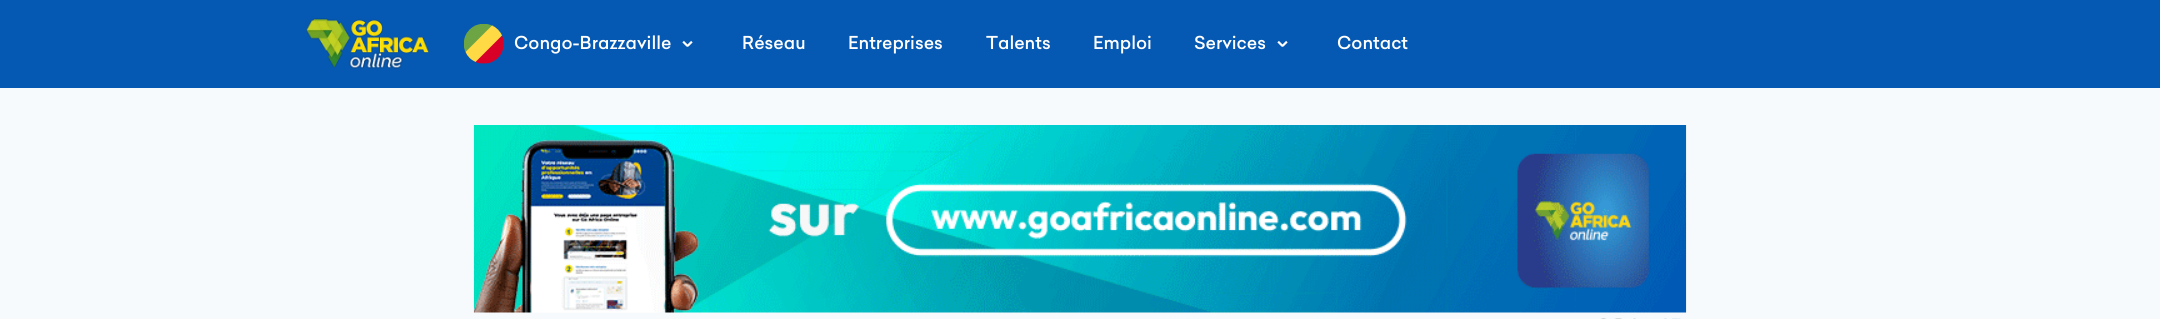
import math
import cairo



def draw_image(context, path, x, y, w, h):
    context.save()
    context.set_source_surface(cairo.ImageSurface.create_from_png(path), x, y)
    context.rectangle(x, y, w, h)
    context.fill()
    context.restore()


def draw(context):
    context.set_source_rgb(247 / 255, 250 / 255, 252 / 255)
    context.paint()
    context.set_source_rgb(6 / 255, 89 / 255, 178 / 255)
    context.rectangle(0, 0, 2160, 88)
    context.fill()
    draw_image(context, "images/1.png", 306, 18, 123, 51)
    draw_image(context, "images/2.png", 464, 24, 40, 40)
    draw_image(context, "images/3.png", 682, 40, 11, 7)
    draw_image(context, "images/3.png", 1277, 40, 11, 7)
    draw_image(context, "images/4.png", 473, 125, 1214, 194)
    context.select_font_face("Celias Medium")
    context.set_font_size(17.5)
    context.set_source_rgb(1, 1, 1)
    context.move_to(514, 49)
    context.show_text("Congo-Brazzaville")
    context.move_to(742, 49)
    context.show_text("Réseau")
    context.move_to(848, 49)
    context.show_text("Entreprises")
    context.move_to(986, 49)
    context.show_text("Talents")
    context.move_to(1093, 49)
    context.show_text("Emploi")
    context.move_to(1194, 49)
    context.show_text("Services")
    context.move_to(1337, 49)
    context.show_text("Contact")


surface = cairo.ImageSurface(cairo.Format.RGB24, 2160, 319)
context = cairo.Context(surface)
options = cairo.FontOptions()
options.set_hint_metrics(cairo.HintMetrics.OFF)
options.set_hint_style(cairo.HintStyle.NONE)
context.set_font_options(options)
context.set_miter_limit(4)
draw(context)
surface.write_to_png("out.png")
